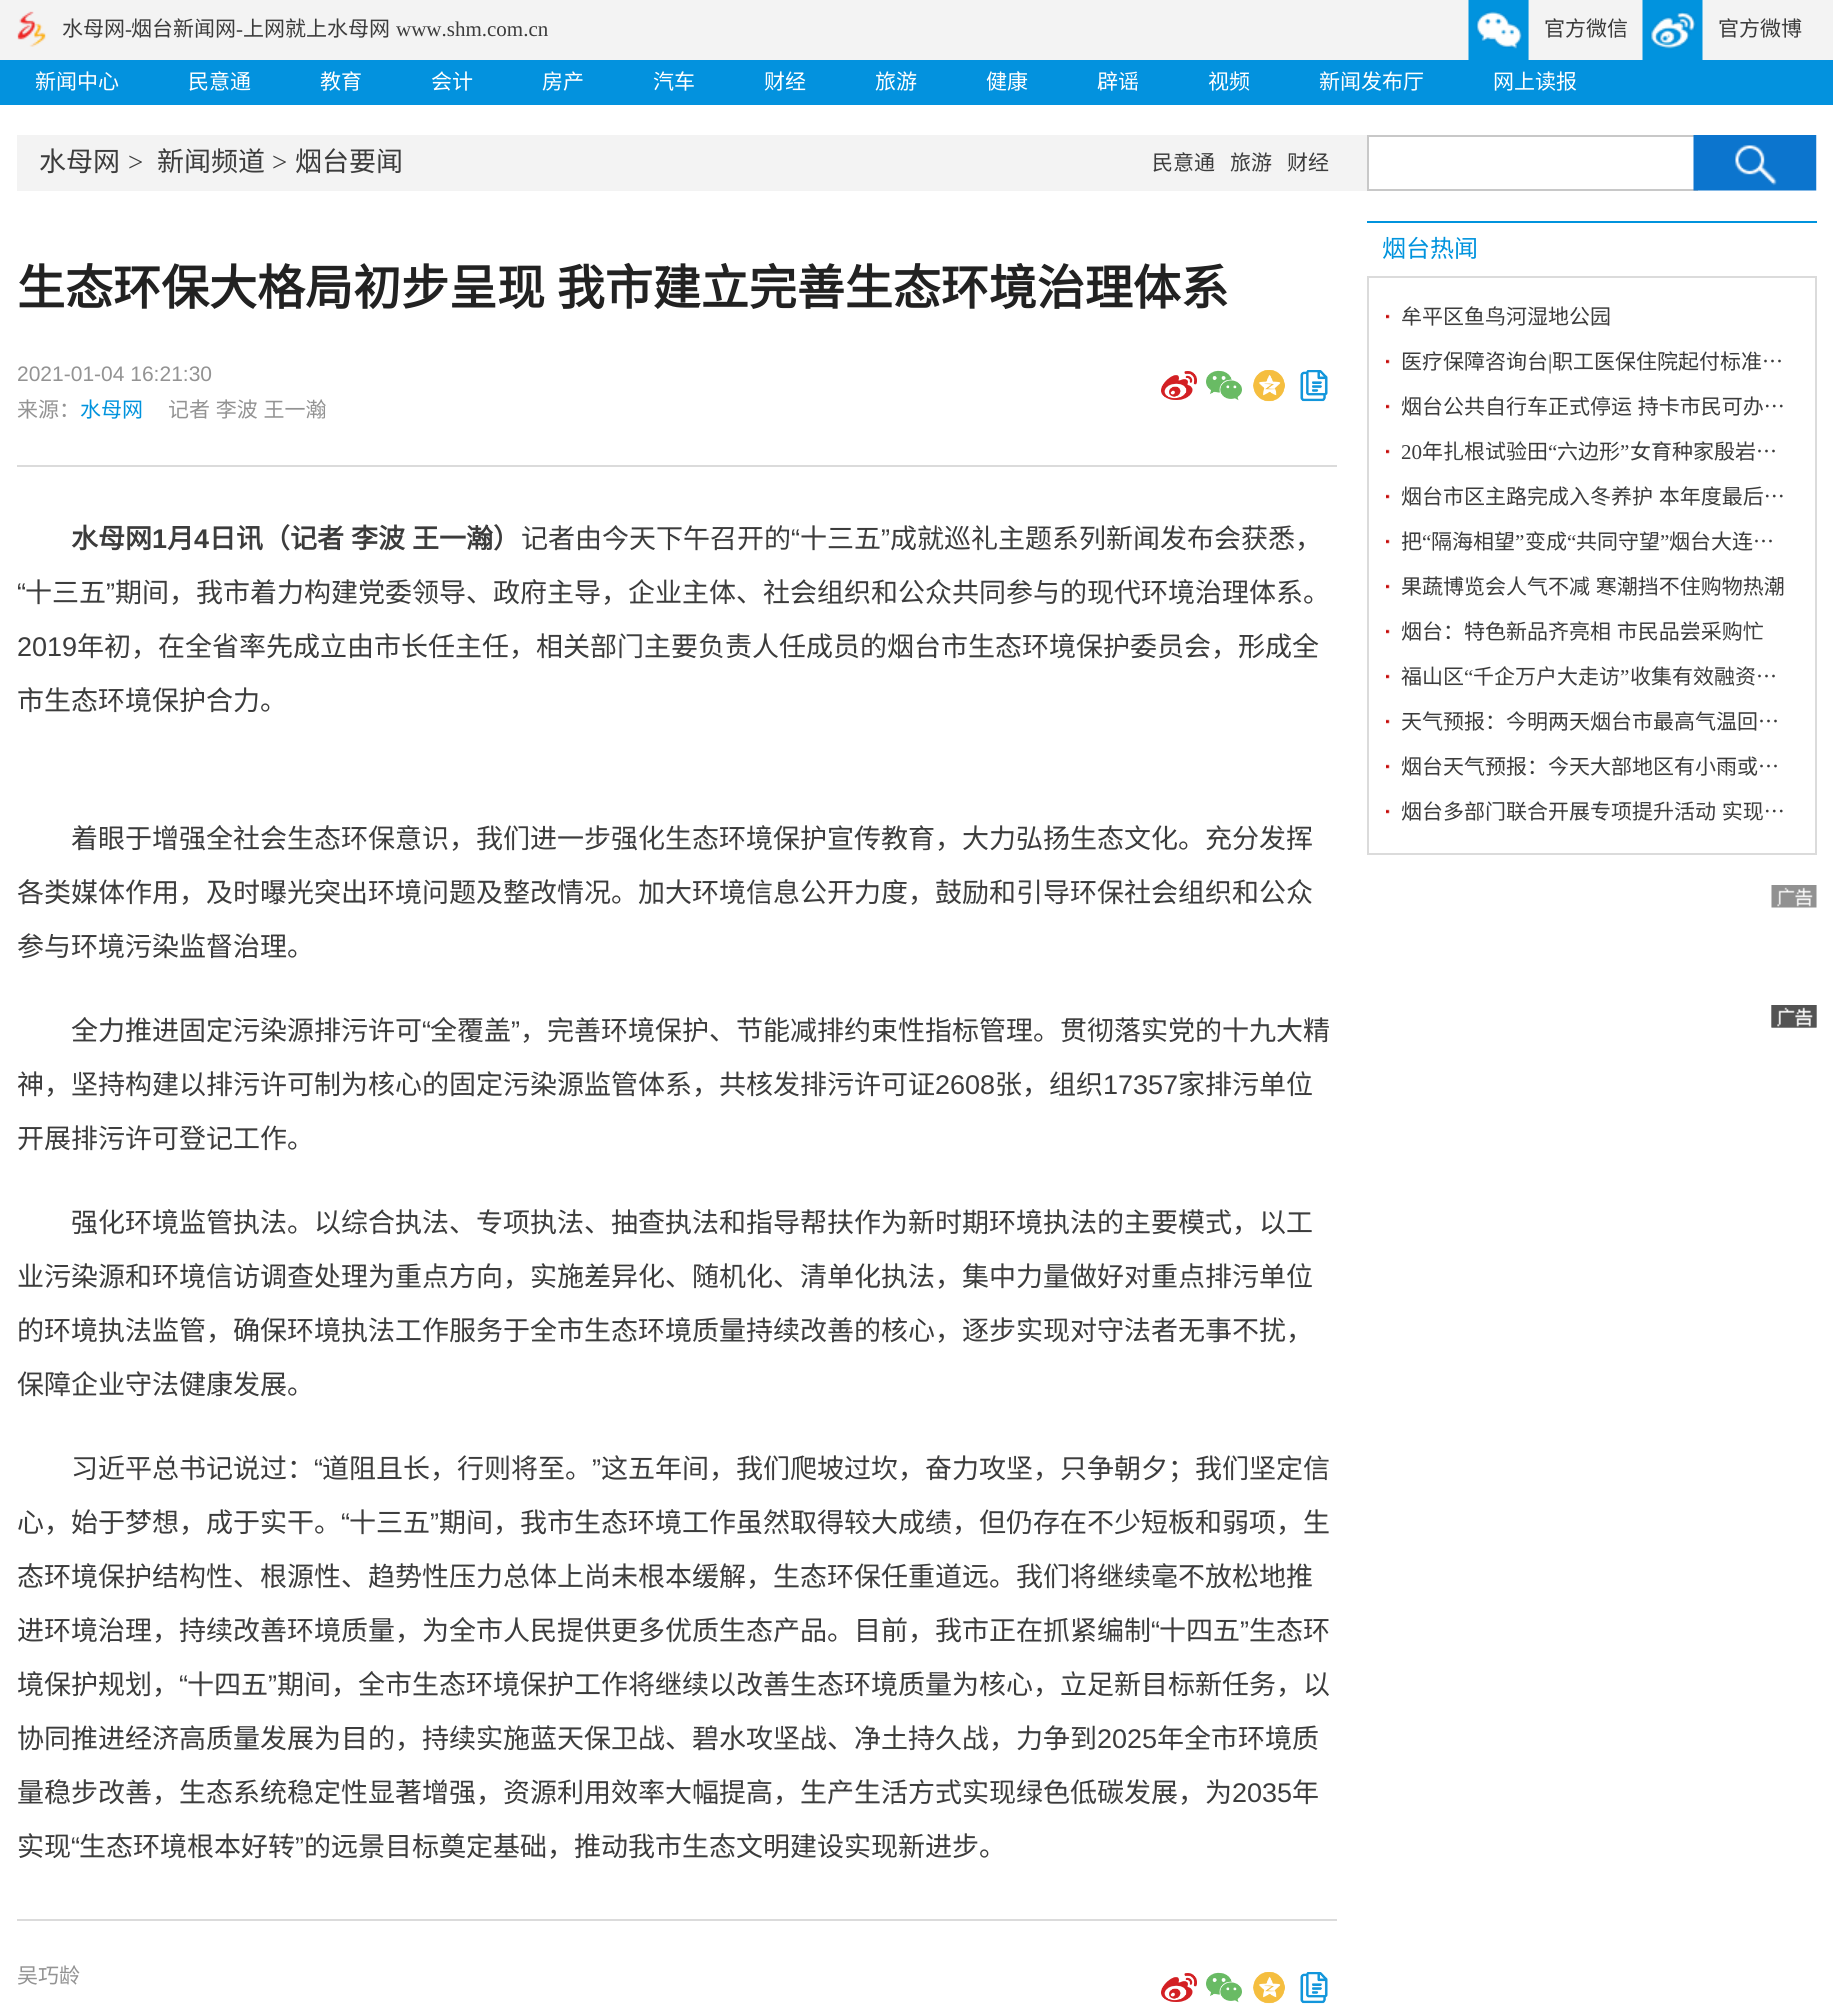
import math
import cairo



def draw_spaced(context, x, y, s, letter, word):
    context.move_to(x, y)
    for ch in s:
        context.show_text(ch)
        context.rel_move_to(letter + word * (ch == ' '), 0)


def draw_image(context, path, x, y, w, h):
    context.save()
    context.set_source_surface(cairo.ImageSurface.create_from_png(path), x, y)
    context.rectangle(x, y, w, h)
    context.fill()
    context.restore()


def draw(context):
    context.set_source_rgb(1, 1, 1)
    context.paint()
    context.set_source_rgb(243 / 255, 243 / 255, 243 / 255)
    context.rectangle(0, 0, 1833, 60)
    context.fill()
    draw_image(context, "images/1.png", 17, 11, 29, 36)
    draw_image(context, "images/2.png", 1468, 0, 61, 60)
    draw_image(context, "images/3.png", 1642, 0, 61, 60)
    context.set_source_rgb(3 / 255, 146 / 255, 222 / 255)
    context.rectangle(0, 60, 1833, 45)
    context.fill()
    context.set_source_rgb(243 / 255, 243 / 255, 243 / 255)
    context.rectangle(17, 135, 1350, 56)
    context.fill()
    context.set_source_rgb(200 / 255, 200 / 255, 200 / 255)
    context.rectangle(1367, 135, 331, 2)
    context.fill()
    context.rectangle(1367, 189, 331, 2)
    context.fill()
    context.rectangle(1367, 135, 2, 56)
    context.fill()
    draw_image(context, "images/4.png", 1693, 135, 124, 56)
    context.set_source_rgb(219 / 255, 219 / 255, 219 / 255)
    context.rectangle(17, 465, 1320, 2)
    context.fill()
    draw_image(context, "images/5.png", 1161, 371, 36, 29)
    draw_image(context, "images/6.png", 1206, 370, 36, 31)
    draw_image(context, "images/7.png", 1253, 370, 32, 32)
    draw_image(context, "images/8.png", 1300, 370, 28, 32)
    context.rectangle(17, 1919, 1320, 2)
    context.fill()
    draw_image(context, "images/5.png", 1161, 1973, 36, 29)
    draw_image(context, "images/6.png", 1206, 1972, 36, 31)
    draw_image(context, "images/7.png", 1253, 1972, 32, 32)
    draw_image(context, "images/8.png", 1300, 1972, 28, 32)
    context.set_source_rgb(0, 147 / 255, 221 / 255)
    context.rectangle(1367, 221, 450, 2)
    context.fill()
    context.rectangle(1368, 277, 448, 577)
    context.set_source_rgb(219 / 255, 219 / 255, 219 / 255)
    context.stroke()
    draw_image(context, "images/9.png", 1386, 314, 4, 5)
    draw_image(context, "images/9.png", 1386, 359, 4, 5)
    draw_image(context, "images/9.png", 1386, 404, 4, 5)
    draw_image(context, "images/9.png", 1386, 449, 4, 5)
    draw_image(context, "images/9.png", 1386, 494, 4, 5)
    draw_image(context, "images/9.png", 1386, 539, 4, 5)
    draw_image(context, "images/9.png", 1386, 584, 4, 5)
    draw_image(context, "images/9.png", 1386, 629, 4, 5)
    draw_image(context, "images/9.png", 1386, 674, 4, 5)
    draw_image(context, "images/9.png", 1386, 719, 4, 5)
    draw_image(context, "images/9.png", 1386, 764, 4, 5)
    draw_image(context, "images/9.png", 1386, 809, 4, 5)
    draw_image(context, "images/10.png", 1771, 885, 46, 23)
    draw_image(context, "images/10.png", 1771, 1005, 46, 23)
    draw_image(context, "images/11.png", 1771, 1005, 46, 23)
    draw_image(context, "images/12.png", 1771, 1005, 46, 23)
    context.select_font_face("Noto Sans CJK SC")
    context.set_font_size(21)
    context.set_source_rgb(60 / 255, 60 / 255, 60 / 255)
    context.move_to(62, 36)
    context.show_text("水母网")
    context.select_font_face("Liberation Serif")
    context.move_to(125, 36)
    context.show_text("-")
    context.select_font_face("Noto Sans CJK SC")
    context.move_to(131, 36)
    context.show_text("烟台新闻网")
    context.select_font_face("Liberation Serif")
    context.move_to(236, 36)
    context.show_text("-")
    context.select_font_face("Noto Sans CJK SC")
    context.move_to(243, 36)
    context.show_text("上网就上水母网")
    context.select_font_face("Liberation Serif")
    context.move_to(396, 36)
    context.show_text("www.shm.com.cn")
    context.select_font_face("Noto Sans CJK SC")
    context.move_to(1544, 36)
    context.show_text("官方微信")
    context.move_to(1718, 36)
    context.show_text("官方微博")
    context.set_source_rgb(1, 1, 1)
    context.move_to(35, 89)
    context.show_text("新闻中心")
    context.move_to(188, 89)
    context.show_text("民意通")
    context.move_to(320, 89)
    context.show_text("教育")
    context.move_to(431, 89)
    context.show_text("会计")
    context.move_to(542, 89)
    context.show_text("房产")
    context.move_to(653, 89)
    context.show_text("汽车")
    context.move_to(764, 89)
    context.show_text("财经")
    context.move_to(875, 89)
    context.show_text("旅游")
    context.move_to(986, 89)
    context.show_text("健康")
    context.move_to(1097, 89)
    context.show_text("辟谣")
    context.move_to(1208, 89)
    context.show_text("视频")
    context.move_to(1319, 89)
    context.show_text("新闻发布厅")
    context.move_to(1493, 89)
    context.show_text("网上读报")
    context.set_font_size(27)
    context.set_source_rgb(60 / 255, 60 / 255, 60 / 255)
    context.move_to(39, 171)
    context.show_text("水母网")
    context.select_font_face("Liberation Serif")
    context.move_to(128, 171)
    context.show_text(">")
    context.select_font_face("Noto Sans CJK SC")
    context.move_to(157, 171)
    context.show_text("新闻频道")
    context.select_font_face("Liberation Serif")
    context.move_to(272, 171)
    context.show_text(">")
    context.select_font_face("Noto Sans CJK SC")
    context.move_to(295, 171)
    context.show_text("烟台要闻")
    context.set_font_size(21)
    context.move_to(1152, 170)
    context.show_text("民意通")
    context.move_to(1230, 170)
    context.show_text("旅游")
    context.move_to(1287, 170)
    context.show_text("财经")
    context.select_font_face("Noto Sans CJK SC", cairo.FontSlant.NORMAL, cairo.FontWeight.BOLD)
    context.set_font_size(48)
    context.set_source_rgb(34 / 255, 34 / 255, 34 / 255)
    draw_spaced(context, 17, 305, "生态环保大格局初步呈现 我市建立完善生态环境治理体系", 0, 1)
    context.select_font_face("Liberation Sans")
    context.set_font_size(21)
    context.set_source_rgb(147 / 255, 147 / 255, 147 / 255)
    context.move_to(17, 381)
    context.show_text("2021-01-04 16:21:30")
    context.select_font_face("Noto Sans CJK SC")
    context.move_to(17, 417)
    context.show_text("来源：")
    context.set_source_rgb(0, 147 / 255, 221 / 255)
    context.move_to(80, 417)
    context.show_text("水母网")
    context.set_source_rgb(147 / 255, 147 / 255, 147 / 255)
    draw_spaced(context, 168, 417, "记者 李波 王一瀚", 0, 1)
    context.select_font_face("Noto Sans CJK SC", cairo.FontSlant.NORMAL, cairo.FontWeight.BOLD)
    context.set_font_size(27)
    context.set_source_rgb(60 / 255, 60 / 255, 60 / 255)
    context.move_to(71, 548)
    context.show_text("水母网")
    context.select_font_face("Liberation Sans", cairo.FontSlant.NORMAL, cairo.FontWeight.BOLD)
    context.move_to(152, 548)
    context.show_text("1")
    context.select_font_face("Noto Sans CJK SC", cairo.FontSlant.NORMAL, cairo.FontWeight.BOLD)
    context.move_to(167, 548)
    context.show_text("月")
    context.select_font_face("Liberation Sans", cairo.FontSlant.NORMAL, cairo.FontWeight.BOLD)
    context.move_to(194, 548)
    context.show_text("4")
    context.select_font_face("Noto Sans CJK SC", cairo.FontSlant.NORMAL, cairo.FontWeight.BOLD)
    draw_spaced(context, 209, 548, "日讯（记者 李波 王一瀚）", 0, 1)
    context.select_font_face("Noto Sans CJK SC")
    context.move_to(521, 548)
    context.show_text("记者由今天下午召开的")
    context.select_font_face("Liberation Sans")
    context.move_to(791, 548)
    context.show_text("“")
    context.select_font_face("Noto Sans CJK SC")
    context.move_to(800, 548)
    context.show_text("十三五")
    context.select_font_face("Liberation Sans")
    context.move_to(881, 548)
    context.show_text("”")
    context.select_font_face("Noto Sans CJK SC")
    context.move_to(890, 548)
    context.show_text("成就巡礼主题系列新闻发布会获悉，")
    context.select_font_face("Liberation Sans")
    context.move_to(17, 602)
    context.show_text("“")
    context.select_font_face("Noto Sans CJK SC")
    context.move_to(25, 602)
    context.show_text("十三五")
    context.select_font_face("Liberation Sans")
    context.move_to(106, 602)
    context.show_text("”")
    context.select_font_face("Noto Sans CJK SC")
    context.move_to(115, 602)
    context.show_text("期间，我市着力构建党委领导、政府主导，企业主体、社会组织和公众共同参与的现代环境治理体系。")
    context.select_font_face("Liberation Sans")
    context.move_to(17, 656)
    context.show_text("2019")
    context.select_font_face("Noto Sans CJK SC")
    context.move_to(77, 656)
    context.show_text("年初，在全省率先成立由市长任主任，相关部门主要负责人任成员的烟台市生态环境保护委员会，形成全")
    context.move_to(17, 710)
    context.show_text("市生态环境保护合力。")
    context.move_to(71, 848)
    context.show_text("着眼于增强全社会生态环保意识，我们进一步强化生态环境保护宣传教育，大力弘扬生态文化。充分发挥")
    context.move_to(17, 902)
    context.show_text("各类媒体作用，及时曝光突出环境问题及整改情况。加大环境信息公开力度，鼓励和引导环保社会组织和公众")
    context.move_to(17, 956)
    context.show_text("参与环境污染监督治理。")
    context.move_to(71, 1040)
    context.show_text("全力推进固定污染源排污许可")
    context.select_font_face("Liberation Sans")
    context.move_to(422, 1040)
    context.show_text("“")
    context.select_font_face("Noto Sans CJK SC")
    context.move_to(430, 1040)
    context.show_text("全覆盖")
    context.select_font_face("Liberation Sans")
    context.move_to(511, 1040)
    context.show_text("”")
    context.select_font_face("Noto Sans CJK SC")
    context.move_to(520, 1040)
    context.show_text("，完善环境保护、节能减排约束性指标管理。贯彻落实党的十九大精")
    context.move_to(17, 1094)
    context.show_text("神，坚持构建以排污许可制为核心的固定污染源监管体系，共核发排污许可证")
    context.select_font_face("Liberation Sans")
    context.move_to(935, 1094)
    context.show_text("2608")
    context.select_font_face("Noto Sans CJK SC")
    context.move_to(995, 1094)
    context.show_text("张，组织")
    context.select_font_face("Liberation Sans")
    context.move_to(1103, 1094)
    context.show_text("17357")
    context.select_font_face("Noto Sans CJK SC")
    context.move_to(1178, 1094)
    context.show_text("家排污单位")
    context.move_to(17, 1148)
    context.show_text("开展排污许可登记工作。")
    context.move_to(71, 1232)
    context.show_text("强化环境监管执法。以综合执法、专项执法、抽查执法和指导帮扶作为新时期环境执法的主要模式，以工")
    context.move_to(17, 1286)
    context.show_text("业污染源和环境信访调查处理为重点方向，实施差异化、随机化、清单化执法，集中力量做好对重点排污单位")
    context.move_to(17, 1340)
    context.show_text("的环境执法监管，确保环境执法工作服务于全市生态环境质量持续改善的核心，逐步实现对守法者无事不扰，")
    context.move_to(17, 1394)
    context.show_text("保障企业守法健康发展。")
    context.move_to(71, 1478)
    context.show_text("习近平总书记说过：")
    context.select_font_face("Liberation Sans")
    context.move_to(314, 1478)
    context.show_text("“")
    context.select_font_face("Noto Sans CJK SC")
    context.move_to(322, 1478)
    context.show_text("道阻且长，行则将至。")
    context.select_font_face("Liberation Sans")
    context.move_to(592, 1478)
    context.show_text("”")
    context.select_font_face("Noto Sans CJK SC")
    context.move_to(601, 1478)
    context.show_text("这五年间，我们爬坡过坎，奋力攻坚，只争朝夕；我们坚定信")
    context.move_to(17, 1532)
    context.show_text("心，始于梦想，成于实干。")
    context.select_font_face("Liberation Sans")
    context.move_to(341, 1532)
    context.show_text("“")
    context.select_font_face("Noto Sans CJK SC")
    context.move_to(349, 1532)
    context.show_text("十三五")
    context.select_font_face("Liberation Sans")
    context.move_to(430, 1532)
    context.show_text("”")
    context.select_font_face("Noto Sans CJK SC")
    context.move_to(439, 1532)
    context.show_text("期间，我市生态环境工作虽然取得较大成绩，但仍存在不少短板和弱项，生")
    context.move_to(17, 1586)
    context.show_text("态环境保护结构性、根源性、趋势性压力总体上尚未根本缓解，生态环保任重道远。我们将继续毫不放松地推")
    context.move_to(17, 1640)
    context.show_text("进环境治理，持续改善环境质量，为全市人民提供更多优质生态产品。目前，我市正在抓紧编制")
    context.select_font_face("Liberation Sans")
    context.move_to(1151, 1640)
    context.show_text("“")
    context.select_font_face("Noto Sans CJK SC")
    context.move_to(1159, 1640)
    context.show_text("十四五")
    context.select_font_face("Liberation Sans")
    context.move_to(1240, 1640)
    context.show_text("”")
    context.select_font_face("Noto Sans CJK SC")
    context.move_to(1249, 1640)
    context.show_text("生态环")
    context.move_to(17, 1694)
    context.show_text("境保护规划，")
    context.select_font_face("Liberation Sans")
    context.move_to(179, 1694)
    context.show_text("“")
    context.select_font_face("Noto Sans CJK SC")
    context.move_to(187, 1694)
    context.show_text("十四五")
    context.select_font_face("Liberation Sans")
    context.move_to(268, 1694)
    context.show_text("”")
    context.select_font_face("Noto Sans CJK SC")
    context.move_to(277, 1694)
    context.show_text("期间，全市生态环境保护工作将继续以改善生态环境质量为核心，立足新目标新任务，以")
    context.move_to(17, 1748)
    context.show_text("协同推进经济高质量发展为目的，持续实施蓝天保卫战、碧水攻坚战、净土持久战，力争到")
    context.select_font_face("Liberation Sans")
    context.move_to(1097, 1748)
    context.show_text("2025")
    context.select_font_face("Noto Sans CJK SC")
    context.move_to(1157, 1748)
    context.show_text("年全市环境质")
    context.move_to(17, 1802)
    context.show_text("量稳步改善，生态系统稳定性显著增强，资源利用效率大幅提高，生产生活方式实现绿色低碳发展，为")
    context.select_font_face("Liberation Sans")
    context.move_to(1232, 1802)
    context.show_text("2035")
    context.select_font_face("Noto Sans CJK SC")
    context.move_to(1292, 1802)
    context.show_text("年")
    context.move_to(17, 1856)
    context.show_text("实现")
    context.select_font_face("Liberation Sans")
    context.move_to(71, 1856)
    context.show_text("“")
    context.select_font_face("Noto Sans CJK SC")
    context.move_to(79, 1856)
    context.show_text("生态环境根本好转")
    context.select_font_face("Liberation Sans")
    context.move_to(295, 1856)
    context.show_text("”")
    context.select_font_face("Noto Sans CJK SC")
    context.move_to(304, 1856)
    context.show_text("的远景目标奠定基础，推动我市生态文明建设实现新进步。")
    context.set_font_size(21)
    context.set_source_rgb(147 / 255, 147 / 255, 147 / 255)
    context.move_to(17, 1983)
    context.show_text("吴巧龄")
    context.set_font_size(24)
    context.set_source_rgb(0, 147 / 255, 221 / 255)
    context.move_to(1382, 257)
    context.show_text("烟台热闻")
    context.set_font_size(21)
    context.set_source_rgb(60 / 255, 60 / 255, 60 / 255)
    context.move_to(1401, 324)
    context.show_text("牟平区鱼鸟河湿地公园")
    context.move_to(1401, 369)
    context.show_text("医疗保障咨询台")
    context.select_font_face("Liberation Serif")
    context.move_to(1548, 369)
    context.show_text("|")
    context.select_font_face("Noto Sans CJK SC")
    context.move_to(1552, 369)
    context.show_text("职工医保住院起付标准…")
    draw_spaced(context, 1401, 414, "烟台公共自行车正式停运 持卡市民可办…", 0, 1)
    context.select_font_face("Liberation Serif")
    context.move_to(1401, 459)
    context.show_text("20")
    context.select_font_face("Noto Sans CJK SC")
    context.move_to(1422, 459)
    context.show_text("年扎根试验田")
    context.select_font_face("Liberation Serif")
    context.move_to(1548, 459)
    context.show_text("“")
    context.select_font_face("Noto Sans CJK SC")
    context.move_to(1557, 459)
    context.show_text("六边形")
    context.select_font_face("Liberation Serif")
    context.move_to(1620, 459)
    context.show_text("”")
    context.select_font_face("Noto Sans CJK SC")
    context.move_to(1630, 459)
    context.show_text("女育种家殷岩…")
    draw_spaced(context, 1401, 504, "烟台市区主路完成入冬养护 本年度最后…", 0, 1)
    context.move_to(1401, 549)
    context.show_text("把")
    context.select_font_face("Liberation Serif")
    context.move_to(1422, 549)
    context.show_text("“")
    context.select_font_face("Noto Sans CJK SC")
    context.move_to(1431, 549)
    context.show_text("隔海相望")
    context.select_font_face("Liberation Serif")
    context.move_to(1515, 549)
    context.show_text("”")
    context.select_font_face("Noto Sans CJK SC")
    context.move_to(1525, 549)
    context.show_text("变成")
    context.select_font_face("Liberation Serif")
    context.move_to(1567, 549)
    context.show_text("“")
    context.select_font_face("Noto Sans CJK SC")
    context.move_to(1576, 549)
    context.show_text("共同守望")
    context.select_font_face("Liberation Serif")
    context.move_to(1660, 549)
    context.show_text("”")
    context.select_font_face("Noto Sans CJK SC")
    context.move_to(1669, 549)
    context.show_text("烟台大连…")
    draw_spaced(context, 1401, 594, "果蔬博览会人气不减 寒潮挡不住购物热潮", 0, 1)
    draw_spaced(context, 1401, 639, "烟台：特色新品齐亮相 市民品尝采购忙", 0, 1)
    context.move_to(1401, 684)
    context.show_text("福山区")
    context.select_font_face("Liberation Serif")
    context.move_to(1464, 684)
    context.show_text("“")
    context.select_font_face("Noto Sans CJK SC")
    context.move_to(1473, 684)
    context.show_text("千企万户大走访")
    context.select_font_face("Liberation Serif")
    context.move_to(1620, 684)
    context.show_text("”")
    context.select_font_face("Noto Sans CJK SC")
    context.move_to(1630, 684)
    context.show_text("收集有效融资…")
    context.move_to(1401, 729)
    context.show_text("天气预报：今明两天烟台市最高气温回…")
    context.move_to(1401, 774)
    context.show_text("烟台天气预报：今天大部地区有小雨或…")
    draw_spaced(context, 1401, 819, "烟台多部门联合开展专项提升活动 实现…", 0, 1)


surface = cairo.ImageSurface(cairo.Format.RGB24, 1833, 2010)
context = cairo.Context(surface)
options = cairo.FontOptions()
options.set_hint_metrics(cairo.HintMetrics.OFF)
options.set_hint_style(cairo.HintStyle.NONE)
context.set_font_options(options)
context.set_miter_limit(4)
draw(context)
surface.write_to_png("out.png")
